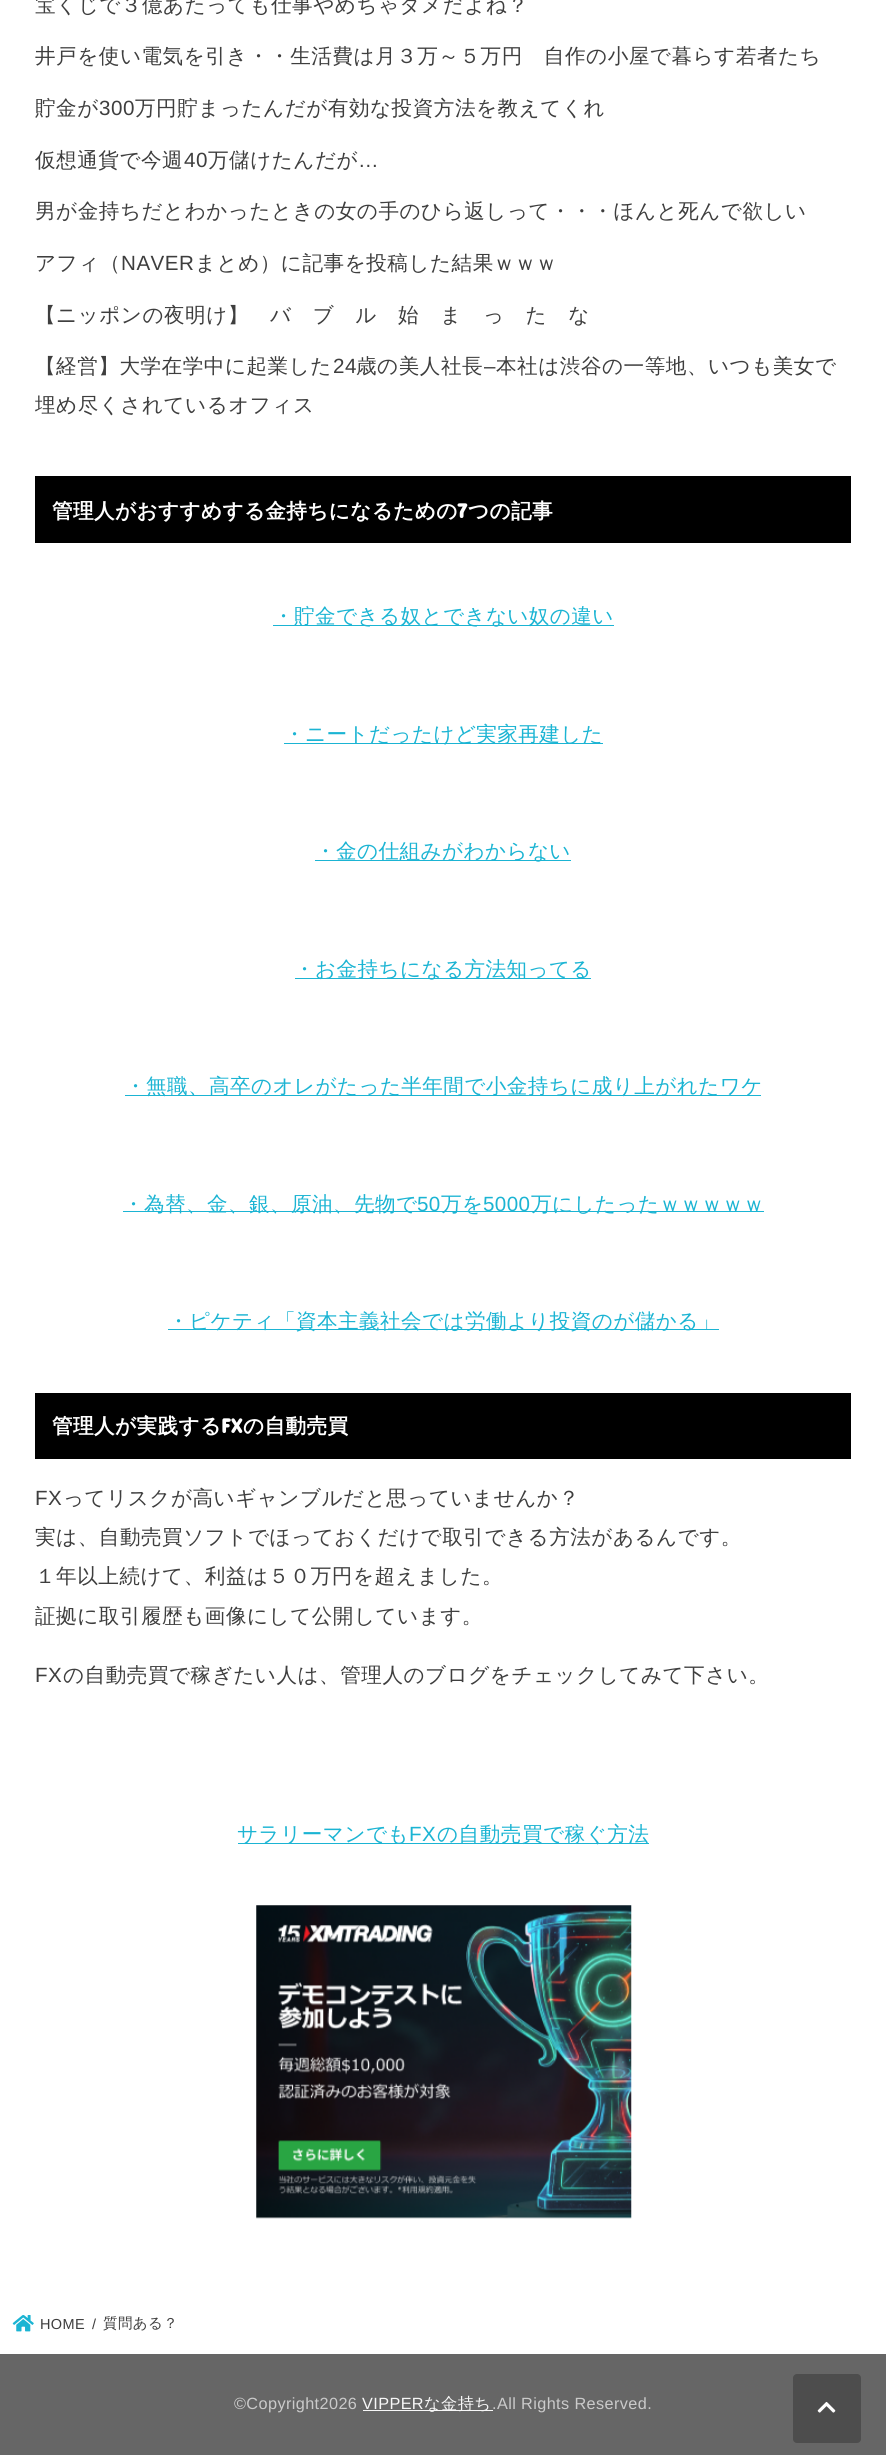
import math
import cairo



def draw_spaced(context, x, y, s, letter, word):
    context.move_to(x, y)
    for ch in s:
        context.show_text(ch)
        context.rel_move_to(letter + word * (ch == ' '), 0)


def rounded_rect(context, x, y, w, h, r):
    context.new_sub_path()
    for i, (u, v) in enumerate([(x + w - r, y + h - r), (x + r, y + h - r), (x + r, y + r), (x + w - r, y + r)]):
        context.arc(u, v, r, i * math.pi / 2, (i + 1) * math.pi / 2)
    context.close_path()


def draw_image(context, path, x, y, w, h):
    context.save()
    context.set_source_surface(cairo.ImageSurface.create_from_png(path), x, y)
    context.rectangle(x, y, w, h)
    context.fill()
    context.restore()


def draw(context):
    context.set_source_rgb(102 / 255, 102 / 255, 102 / 255)
    context.paint()
    context.set_source_rgb(1, 1, 1)
    context.rectangle(0, 0, 886, 2354)
    context.fill()
    context.set_source_rgb(0, 0, 0)
    context.rectangle(35, 476, 816, 67)
    context.fill()
    context.set_source_rgb(27 / 255, 180 / 255, 211 / 255)
    context.rectangle(273, 625, 341, 1)
    context.fill()
    context.rectangle(284, 743, 319, 1)
    context.fill()
    context.rectangle(315, 860, 256, 1)
    context.fill()
    context.rectangle(295, 978, 296, 1)
    context.fill()
    context.rectangle(125, 1095, 636, 1)
    context.fill()
    context.rectangle(123, 1211, 641, 1)
    context.fill()
    context.rectangle(168, 1329, 551, 1)
    context.fill()
    context.set_source_rgb(0, 0, 0)
    context.rectangle(35, 1393, 816, 66)
    context.fill()
    context.set_source_rgb(27 / 255, 180 / 255, 211 / 255)
    context.rectangle(238, 1843, 411, 1)
    context.fill()
    draw_image(context, "images/1.png", 256, 1905, 376, 314)
    draw_image(context, "images/2.png", 12, 2315, 22, 17)
    context.set_source_rgb(247 / 255, 247 / 255, 247 / 255)
    context.rectangle(363, 2410, 130, 1)
    context.fill()
    context.set_source_rgb(77 / 255, 77 / 255, 77 / 255)
    rounded_rect(context, 793, 2374, 68, 69, 4)
    context.fill()
    draw_image(context, "images/3.png", 817, 2401, 19, 12)
    context.select_font_face("WenQuanYi Zen Hei Medium")
    context.set_font_size(20.6)
    context.set_source_rgb(62 / 255, 62 / 255, 62 / 255)
    draw_spaced(context, 35, 12, "宝くじで３億あたっても仕事やめちゃダメだよね？", 0.5, 0)
    draw_spaced(context, 35, 63, "井戸を使い電気を引き・・生活費は月３万～５万円　自作の小屋で暮らす若者たち", 0.5, 0)
    draw_spaced(context, 35, 115, "貯金が", 0.5, 0)
    context.select_font_face("Liberation Sans")
    draw_spaced(context, 99, 115, "300", 0.5, 0)
    context.select_font_face("WenQuanYi Zen Hei Medium")
    draw_spaced(context, 135, 115, "万円貯まったんだが有効な投資方法を教えてくれ", 0.5, 0)
    draw_spaced(context, 35, 167, "仮想通貨で今週", 0.5, 0)
    context.select_font_face("Liberation Sans")
    draw_spaced(context, 184, 167, "40", 0.5, 0)
    context.select_font_face("WenQuanYi Zen Hei Medium")
    draw_spaced(context, 208, 167, "万儲けたんだが", 0.5, 0)
    context.select_font_face("Liberation Sans")
    draw_spaced(context, 358, 167, "…", 0.5, 0)
    context.select_font_face("WenQuanYi Zen Hei Medium")
    draw_spaced(context, 35, 218, "男が金持ちだとわかったときの女の手のひら返しって・・・ほんと死んで欲しい", 0.5, 0)
    draw_spaced(context, 35, 270, "アフィ（", 0.5, 0)
    context.select_font_face("Liberation Sans")
    draw_spaced(context, 121, 270, "NAVER", 0.5, 0)
    context.select_font_face("WenQuanYi Zen Hei Medium")
    draw_spaced(context, 195, 270, "まとめ）に記事を投稿した結果ｗｗｗ", 0.5, 0)
    draw_spaced(context, 35, 322, "【ニッポンの夜明け】　バ　ブ　ル　始　ま　っ　た　な", 0.5, 0)
    draw_spaced(context, 35, 373, "【経営】大学在学中に起業した", 0.5, 0)
    context.select_font_face("Liberation Sans")
    draw_spaced(context, 333, 373, "24", 0.5, 0)
    context.select_font_face("WenQuanYi Zen Hei Medium")
    draw_spaced(context, 356, 373, "歳の美人社長", 0.5, 0)
    context.select_font_face("Liberation Sans")
    draw_spaced(context, 484, 373, "–", 0.5, 0)
    context.select_font_face("WenQuanYi Zen Hei Medium")
    draw_spaced(context, 496, 373, "本社は渋谷の一等地、いつも美女で", 0.5, 0)
    draw_spaced(context, 35, 412, "埋め尽くされているオフィス", 0.5, 0)
    context.select_font_face("WenQuanYi Zen Hei", cairo.FontSlant.NORMAL, cairo.FontWeight.BOLD)
    context.set_source_rgb(1, 1, 1)
    draw_spaced(context, 52, 518, "管理人がおすすめする金持ちになるための", 0.4, 0)
    context.select_font_face("Concert One", cairo.FontSlant.NORMAL, cairo.FontWeight.BOLD)
    draw_spaced(context, 457, 518, "7", 0.4, 0)
    context.select_font_face("WenQuanYi Zen Hei", cairo.FontSlant.NORMAL, cairo.FontWeight.BOLD)
    draw_spaced(context, 468, 518, "つの記事", 0.4, 0)
    context.select_font_face("WenQuanYi Zen Hei Medium")
    context.set_source_rgb(27 / 255, 180 / 255, 211 / 255)
    draw_spaced(context, 273, 623, "・貯金できる奴とできない奴の違い", 0.4, 0)
    draw_spaced(context, 284, 741, "・ニートだったけど実家再建した", 0.4, 0)
    draw_spaced(context, 315, 858, "・金の仕組みがわからない", 0.4, 0)
    draw_spaced(context, 294, 976, "・お金持ちになる方法知ってる", 0.4, 0)
    draw_spaced(context, 125, 1093, "・無職、高卒のオレがたった半年間で小金持ちに成り上がれたワケ", 0.4, 0)
    draw_spaced(context, 123, 1211, "・為替、金、銀、原油、先物で", 0.4, 0)
    context.select_font_face("Liberation Sans")
    draw_spaced(context, 417, 1211, "50", 0.4, 0)
    context.select_font_face("WenQuanYi Zen Hei Medium")
    draw_spaced(context, 441, 1211, "万を", 0.4, 0)
    context.select_font_face("Liberation Sans")
    draw_spaced(context, 483, 1211, "5000", 0.4, 0)
    context.select_font_face("WenQuanYi Zen Hei Medium")
    draw_spaced(context, 531, 1211, "万にしたったｗｗｗｗｗ", 0.4, 0)
    draw_spaced(context, 168, 1328, "・ピケティ「資本主義社会では労働より投資のが儲かる」", 0.4, 0)
    context.select_font_face("WenQuanYi Zen Hei", cairo.FontSlant.NORMAL, cairo.FontWeight.BOLD)
    context.set_source_rgb(1, 1, 1)
    draw_spaced(context, 52, 1433, "管理人が実践する", 0.4, 0)
    context.select_font_face("Concert One", cairo.FontSlant.NORMAL, cairo.FontWeight.BOLD)
    draw_spaced(context, 221, 1433, "FX", 0.4, 0)
    context.select_font_face("WenQuanYi Zen Hei", cairo.FontSlant.NORMAL, cairo.FontWeight.BOLD)
    draw_spaced(context, 243, 1433, "の自動売買", 0.4, 0)
    context.select_font_face("Liberation Sans")
    context.set_source_rgb(62 / 255, 62 / 255, 62 / 255)
    draw_spaced(context, 35, 1505, "FX", 0.5, 0)
    context.select_font_face("WenQuanYi Zen Hei Medium")
    draw_spaced(context, 63, 1505, "ってリスクが高いギャンブルだと思っていませんか？", 0.5, 0)
    draw_spaced(context, 35, 1544, "実は、自動売買ソフトでほっておくだけで取引できる方法があるんです。", 0.5, 0)
    draw_spaced(context, 35, 1583, "１年以上続けて、利益は５０万円を超えました。", 0.5, 0)
    draw_spaced(context, 35, 1623, "証拠に取引履歴も画像にして公開しています。", 0.5, 0)
    context.select_font_face("Liberation Sans")
    draw_spaced(context, 35, 1682, "FX", 0.5, 0)
    context.select_font_face("WenQuanYi Zen Hei Medium")
    draw_spaced(context, 63, 1682, "の自動売買で稼ぎたい人は、管理人のブログをチェックしてみて下さい。", 0.5, 0)
    context.set_source_rgb(27 / 255, 180 / 255, 211 / 255)
    draw_spaced(context, 237, 1841, "サラリーマンでも", 0.5, 0)
    context.select_font_face("Liberation Sans")
    draw_spaced(context, 409, 1841, "FX", 0.5, 0)
    context.select_font_face("WenQuanYi Zen Hei Medium")
    draw_spaced(context, 437, 1841, "の自動売買で稼ぐ方法", 0.5, 0)
    context.select_font_face("Liberation Sans")
    context.set_font_size(14.5)
    context.set_source_rgb(62 / 255, 62 / 255, 62 / 255)
    draw_spaced(context, 40, 2329, "HOME", 0.4, 0)
    draw_spaced(context, 92, 2329, "/", 0.4, 0)
    context.select_font_face("WenQuanYi Zen Hei Medium")
    draw_spaced(context, 103, 2328, "質問ある？", 0.4, 0)
    context.select_font_face("Liberation Sans")
    context.set_font_size(16.25)
    context.set_source_rgb(202 / 255, 202 / 255, 202 / 255)
    draw_spaced(context, 234, 2409, "©Copyright2026", 0.4, 0)
    context.set_source_rgb(247 / 255, 247 / 255, 247 / 255)
    draw_spaced(context, 362, 2409, "VIPPER", 0.4, 0)
    context.select_font_face("WenQuanYi Zen Hei Medium")
    draw_spaced(context, 424, 2409, "な金持ち", 0.4, 0)
    context.select_font_face("Liberation Sans")
    context.set_source_rgb(202 / 255, 202 / 255, 202 / 255)
    draw_spaced(context, 492, 2409, ".All Rights Reserved.", 0.4, 0)


surface = cairo.ImageSurface(cairo.Format.RGB24, 886, 2455)
context = cairo.Context(surface)
options = cairo.FontOptions()
options.set_hint_metrics(cairo.HintMetrics.OFF)
options.set_hint_style(cairo.HintStyle.NONE)
context.set_font_options(options)
context.set_miter_limit(4)
draw(context)
surface.write_to_png("out.png")
